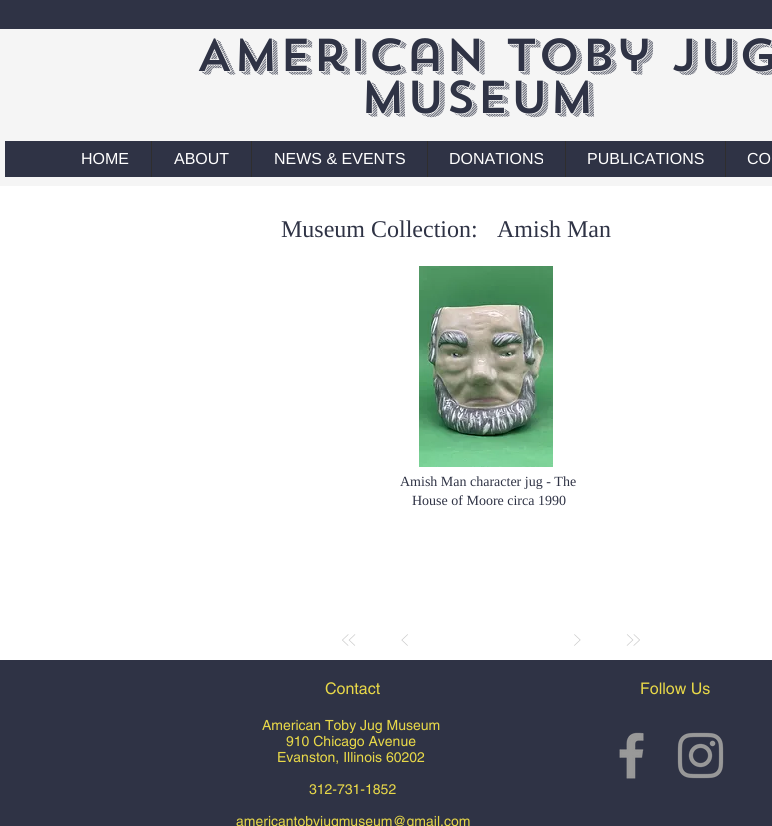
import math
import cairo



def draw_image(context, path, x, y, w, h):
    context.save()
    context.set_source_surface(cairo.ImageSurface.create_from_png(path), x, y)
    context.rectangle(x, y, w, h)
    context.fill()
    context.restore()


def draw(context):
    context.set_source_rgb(1, 1, 1)
    context.paint()
    context.set_source_rgb(245 / 255, 245 / 255, 245 / 255)
    context.rectangle(0, 29, 772, 157)
    context.fill()
    context.set_source_rgb(47 / 255, 51 / 255, 69 / 255)
    context.rectangle(0, 0, 772, 29)
    context.fill()
    context.rectangle(5, 141, 767, 36)
    context.fill()
    context.set_source_rgb(47 / 255, 46 / 255, 46 / 255)
    context.rectangle(151, 141, 1, 36)
    context.fill()
    context.rectangle(251, 141, 1, 36)
    context.fill()
    context.rectangle(427, 141, 1, 36)
    context.fill()
    context.rectangle(565, 141, 1, 36)
    context.fill()
    context.rectangle(725, 141, 1, 36)
    context.fill()
    draw_image(context, "images/1.png", 419, 266, 134, 201)
    draw_image(context, "images/2.png", 342, 634, 14, 12)
    draw_image(context, "images/3.png", 401, 634, 7, 12)
    draw_image(context, "images/4.png", 574, 634, 7, 12)
    draw_image(context, "images/5.png", 626, 634, 14, 12)
    context.set_source_rgb(47 / 255, 51 / 255, 69 / 255)
    context.rectangle(0, 660, 772, 166)
    context.fill()
    draw_image(context, "images/6.png", 619, 732, 25, 47)
    draw_image(context, "images/7.png", 677, 732, 47, 47)
    context.select_font_face("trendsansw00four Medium")
    context.set_font_size(46)
    context.move_to(196, 71)
    context.show_text("American Toby Jug")
    context.move_to(360, 113)
    context.show_text("Museum")
    context.select_font_face("Liberation Sans")
    context.set_font_size(16)
    context.set_source_rgb(1, 1, 1)
    context.move_to(81, 164)
    context.show_text("HOME")
    context.move_to(174, 164)
    context.show_text("ABOUT")
    context.move_to(274, 164)
    context.show_text("NEWS & EVENTS")
    context.move_to(449, 164)
    context.show_text("DONATIONS")
    context.move_to(587, 164)
    context.show_text("PUBLICATIONS")
    context.move_to(747, 164)
    context.show_text("CO")
    context.select_font_face("Liberation Serif")
    context.set_font_size(24)
    context.set_source_rgb(47 / 255, 51 / 255, 69 / 255)
    context.move_to(281, 237)
    context.show_text("Museum Collection:")
    context.move_to(497, 237)
    context.show_text("Amish Man")
    context.set_font_size(14)
    context.move_to(400, 486)
    context.show_text("Amish Man character jug - The")
    context.move_to(412, 505)
    context.show_text("House of Moore circa 1990")
    context.select_font_face("helvetica")
    context.set_font_size(16)
    context.set_source_rgb(232 / 255, 216 / 255, 72 / 255)
    context.move_to(325, 694)
    context.show_text("Contact")
    context.move_to(640, 694)
    context.show_text("Follow Us")
    context.set_font_size(14)
    context.move_to(262, 730)
    context.show_text("American Toby Jug Museum")
    context.move_to(286, 746)
    context.show_text("910 Chicago Avenue")
    context.move_to(277, 762)
    context.show_text("Evanston, Illinois 60202")
    context.move_to(309, 794)
    context.show_text("312-731-1852")
    context.move_to(236, 826)
    context.show_text("americantobyjugmuseum@gmail.com")


surface = cairo.ImageSurface(cairo.Format.RGB24, 772, 826)
context = cairo.Context(surface)
options = cairo.FontOptions()
options.set_hint_metrics(cairo.HintMetrics.OFF)
options.set_hint_style(cairo.HintStyle.NONE)
context.set_font_options(options)
context.set_miter_limit(4)
draw(context)
surface.write_to_png("out.png")
